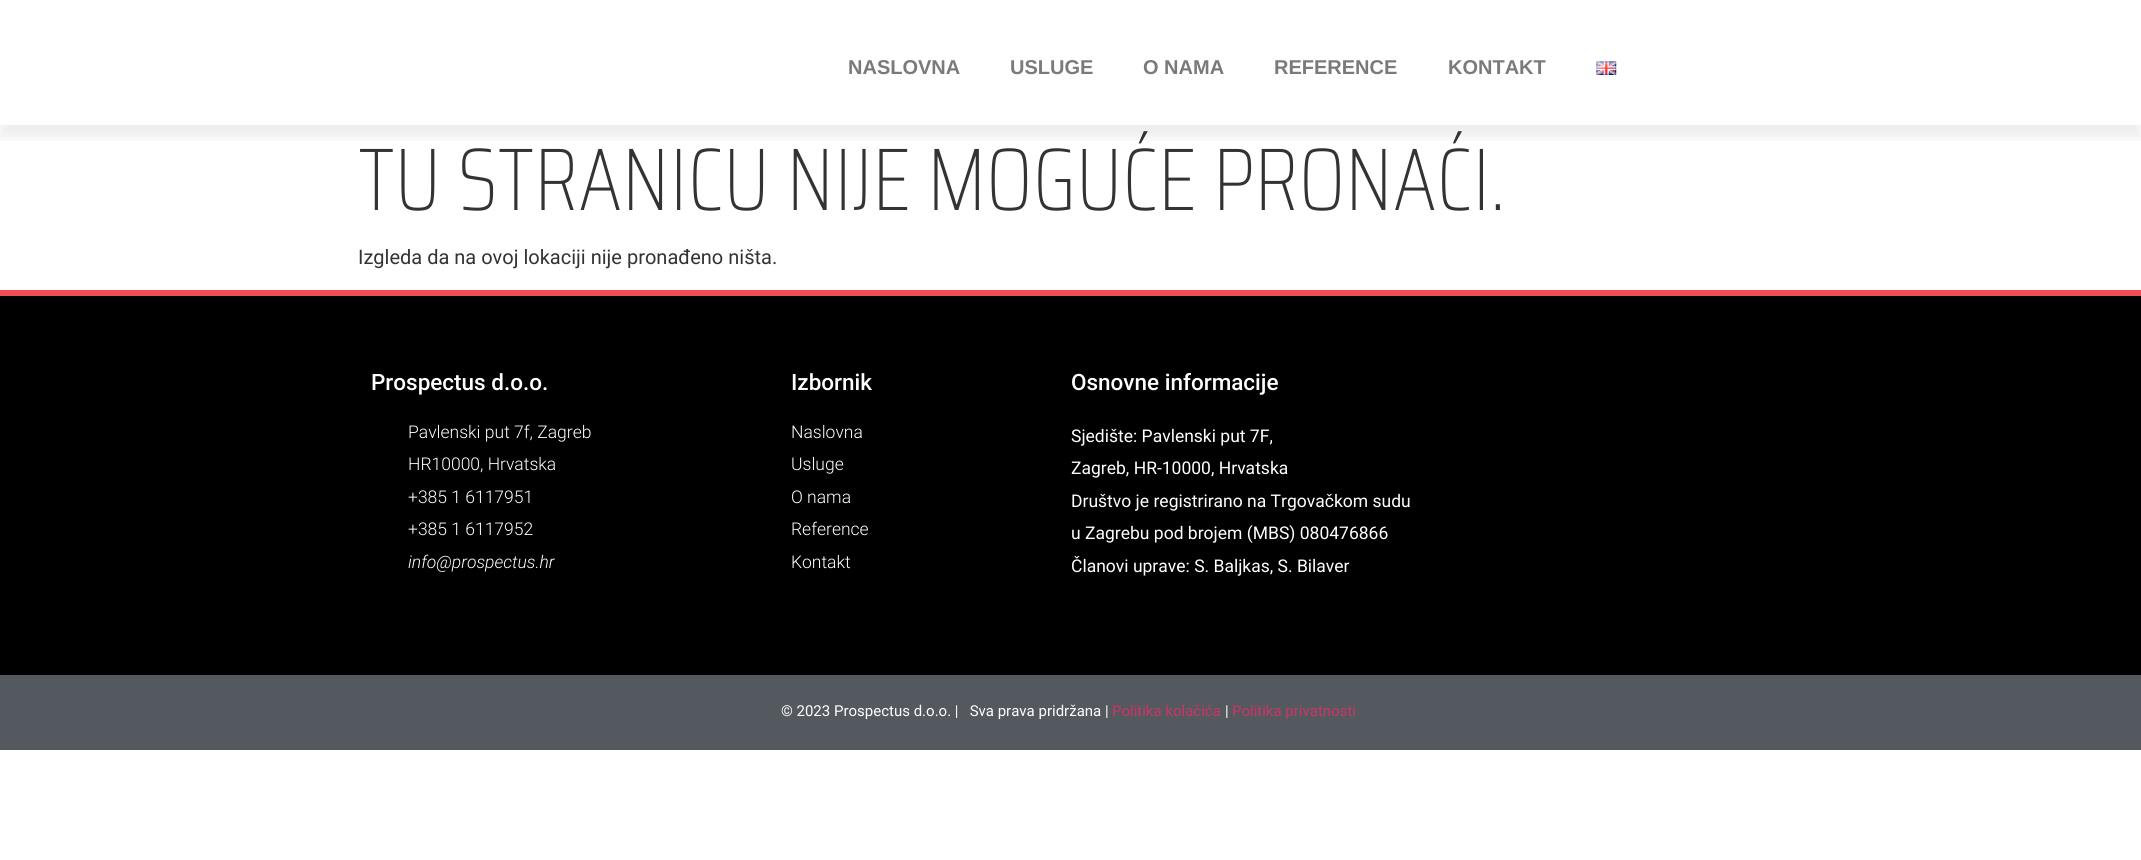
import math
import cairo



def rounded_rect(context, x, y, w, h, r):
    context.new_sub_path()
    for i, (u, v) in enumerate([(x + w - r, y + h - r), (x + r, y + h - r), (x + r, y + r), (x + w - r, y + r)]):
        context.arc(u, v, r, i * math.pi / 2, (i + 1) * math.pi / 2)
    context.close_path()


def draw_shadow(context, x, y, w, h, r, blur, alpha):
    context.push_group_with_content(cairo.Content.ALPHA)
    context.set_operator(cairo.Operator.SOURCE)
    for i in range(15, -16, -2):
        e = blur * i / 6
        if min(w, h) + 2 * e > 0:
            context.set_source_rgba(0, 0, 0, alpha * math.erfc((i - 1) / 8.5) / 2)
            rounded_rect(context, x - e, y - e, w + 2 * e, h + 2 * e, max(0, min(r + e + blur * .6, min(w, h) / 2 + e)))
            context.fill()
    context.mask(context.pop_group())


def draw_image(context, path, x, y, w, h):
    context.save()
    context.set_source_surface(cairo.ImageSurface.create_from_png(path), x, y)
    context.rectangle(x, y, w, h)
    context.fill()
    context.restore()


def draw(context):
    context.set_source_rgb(1, 1, 1)
    context.paint()
    context.save()
    context.rectangle(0, 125, 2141, 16)
    context.clip()
    context.set_source_rgb(0, 0, 0)
    draw_shadow(context, 0, 13, 2141, 125, 0, 6, 0.07)
    context.restore()
    draw_image(context, "images/1.png", 1596, 61, 21, 14)
    context.set_source_rgb(0, 0, 0)
    context.rectangle(0, 296, 2141, 379)
    context.fill()
    context.set_source_rgb(240 / 255, 78 / 255, 82 / 255)
    context.rectangle(0, 290, 2141, 6)
    context.fill()
    context.set_source_rgb(84 / 255, 89 / 255, 95 / 255)
    context.rectangle(0, 675, 2141, 75)
    context.fill()
    context.select_font_face("Liberation Sans", cairo.FontSlant.NORMAL, cairo.FontWeight.BOLD)
    context.set_font_size(20)
    context.set_source_rgb(122 / 255, 122 / 255, 122 / 255)
    context.move_to(848, 74)
    context.show_text("NASLOVNA")
    context.move_to(1010, 74)
    context.show_text("USLUGE")
    context.move_to(1143, 74)
    context.show_text("O NAMA")
    context.move_to(1274, 74)
    context.show_text("REFERENCE")
    context.move_to(1448, 74)
    context.show_text("KONTAKT")
    context.select_font_face("Saira Condensed ExtraLight")
    context.set_font_size(88.75)
    context.set_source_rgb(51 / 255, 51 / 255, 51 / 255)
    context.move_to(358, 210)
    context.show_text("TU STRANICU NIJE MOGUĆE PRONAĆI.")
    context.select_font_face("Roboto")
    context.set_font_size(20)
    context.move_to(358, 264)
    context.show_text("Izgleda da na ovoj lokaciji nije pronađeno ništa.")
    context.select_font_face("Roboto Medium")
    context.set_font_size(22.5)
    context.set_source_rgb(1, 1, 1)
    context.move_to(371, 390)
    context.show_text("Prospectus d.o.o.")
    context.select_font_face("Roboto Light")
    context.set_font_size(17.5)
    context.move_to(408, 438)
    context.show_text("Pavlenski put 7f, Zagreb")
    context.move_to(408, 470)
    context.show_text("HR10000, Hrvatska")
    context.move_to(408, 503)
    context.show_text("+385 1 6117951")
    context.move_to(408, 535)
    context.show_text("+385 1 6117952")
    context.select_font_face("Roboto Light", cairo.FontSlant.ITALIC)
    context.move_to(408, 568)
    context.show_text("info@prospectus.hr")
    context.select_font_face("Roboto Medium")
    context.set_font_size(22.5)
    context.move_to(791, 390)
    context.show_text("Izbornik")
    context.select_font_face("Roboto Light")
    context.set_font_size(17.5)
    context.move_to(791, 438)
    context.show_text("Naslovna")
    context.move_to(791, 470)
    context.show_text("Usluge")
    context.move_to(791, 503)
    context.show_text("O nama")
    context.move_to(791, 535)
    context.show_text("Reference")
    context.move_to(791, 568)
    context.show_text("Kontakt")
    context.select_font_face("Roboto Medium")
    context.set_font_size(22.5)
    context.move_to(1071, 390)
    context.show_text("Osnovne informacije")
    context.select_font_face("Roboto")
    context.set_font_size(17.5)
    context.move_to(1071, 442)
    context.show_text("Sjedište: Pavlenski put 7F,")
    context.move_to(1071, 474)
    context.show_text("Zagreb, HR-10000, Hrvatska")
    context.move_to(1071, 507)
    context.show_text("Društvo je registrirano na Trgovačkom sudu")
    context.move_to(1071, 539)
    context.show_text("u Zagrebu pod brojem (MBS) 080476866")
    context.move_to(1071, 572)
    context.show_text("Članovi uprave: S. Baljkas, S. Bilaver")
    context.set_font_size(15)
    context.move_to(781, 716)
    context.show_text("© 2023 Prospectus d.o.o. |   Sva prava pridržana |")
    context.set_source_rgb(204 / 255, 51 / 255, 102 / 255)
    context.move_to(1112, 716)
    context.show_text("Politika kolačića")
    context.set_source_rgb(1, 1, 1)
    context.move_to(1225, 716)
    context.show_text("|")
    context.set_source_rgb(204 / 255, 51 / 255, 102 / 255)
    context.move_to(1232, 716)
    context.show_text("Politika privatnosti")


surface = cairo.ImageSurface(cairo.Format.RGB24, 2141, 860)
context = cairo.Context(surface)
options = cairo.FontOptions()
options.set_hint_metrics(cairo.HintMetrics.OFF)
options.set_hint_style(cairo.HintStyle.NONE)
context.set_font_options(options)
context.set_miter_limit(4)
draw(context)
surface.write_to_png("out.png")
